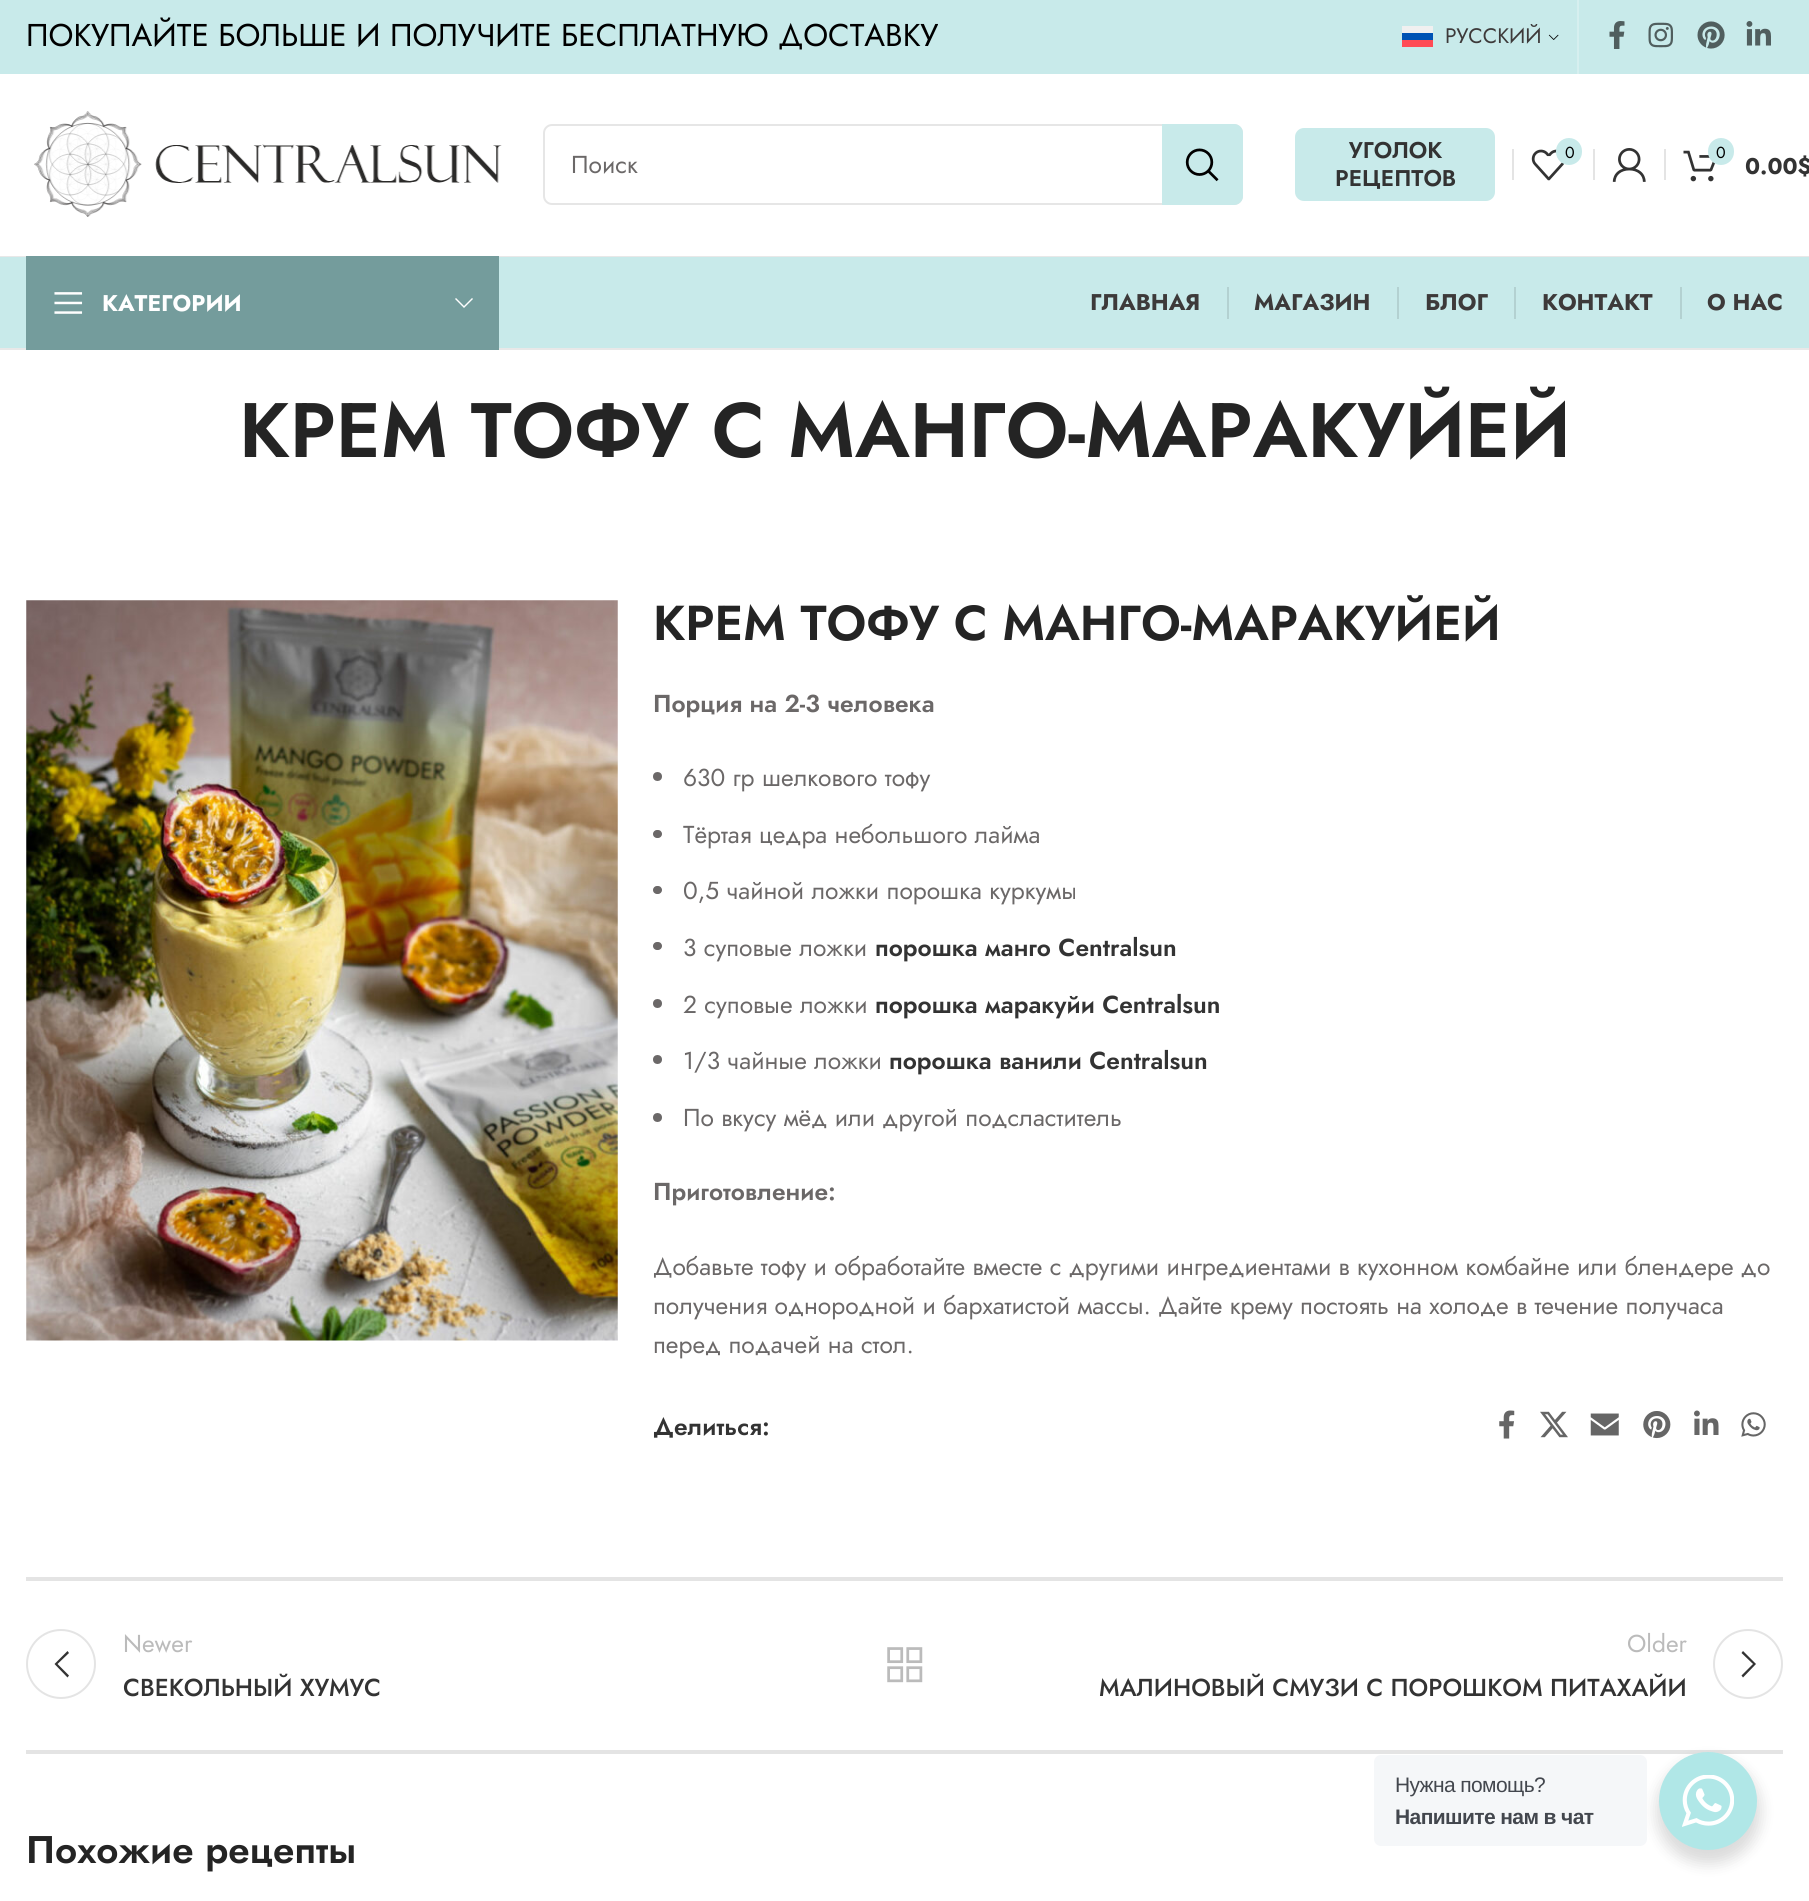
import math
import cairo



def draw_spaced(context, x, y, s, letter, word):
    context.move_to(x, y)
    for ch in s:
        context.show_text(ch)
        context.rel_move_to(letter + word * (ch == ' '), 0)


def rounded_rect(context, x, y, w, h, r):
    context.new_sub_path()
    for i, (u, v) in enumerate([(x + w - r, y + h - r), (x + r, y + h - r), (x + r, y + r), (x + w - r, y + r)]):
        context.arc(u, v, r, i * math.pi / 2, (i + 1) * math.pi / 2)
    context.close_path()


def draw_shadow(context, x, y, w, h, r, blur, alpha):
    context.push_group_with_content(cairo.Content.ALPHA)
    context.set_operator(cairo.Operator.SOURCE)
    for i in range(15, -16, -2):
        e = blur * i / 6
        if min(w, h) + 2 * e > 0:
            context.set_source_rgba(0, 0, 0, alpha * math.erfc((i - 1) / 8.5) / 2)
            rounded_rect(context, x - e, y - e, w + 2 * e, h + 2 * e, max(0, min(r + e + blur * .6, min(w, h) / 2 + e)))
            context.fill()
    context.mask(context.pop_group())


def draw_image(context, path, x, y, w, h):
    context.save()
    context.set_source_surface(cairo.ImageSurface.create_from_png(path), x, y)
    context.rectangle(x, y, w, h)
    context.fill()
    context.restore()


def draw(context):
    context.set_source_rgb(1, 1, 1)
    context.paint()
    context.set_source_rgb(200 / 255, 234 / 255, 234 / 255)
    context.rectangle(0, 0, 1809, 74)
    context.fill()
    context.set_source_rgb(0, 82 / 255, 180 / 255)
    context.rectangle(1402, 33, 31, 7)
    context.fill()
    context.set_source_rgb(1, 75 / 255, 85 / 255)
    context.rectangle(1402, 40, 31, 7)
    context.fill()
    context.set_source_rgb(240 / 255, 240 / 255, 240 / 255)
    context.rectangle(1402, 26, 31, 7)
    context.fill()
    draw_image(context, "images/1.png", 1548, 34, 11, 6)
    context.set_source_rgb(214 / 255, 239 / 255, 239 / 255)
    context.rectangle(1577, 0, 2, 74)
    context.fill()
    draw_image(context, "images/2.png", 1609, 21, 16, 28)
    draw_image(context, "images/3.png", 1648, 22, 25, 26)
    draw_image(context, "images/4.png", 1697, 21, 28, 28)
    draw_image(context, "images/5.png", 1746, 21, 25, 25)
    context.set_source_rgb(232 / 255, 232 / 255, 232 / 255)
    context.rectangle(0, 256, 1809, 1)
    context.fill()
    draw_image(context, "images/6.png", 34, 111, 468, 106)
    rounded_rect(context, 544, 125, 698, 79, 8)
    context.set_source_rgb(230 / 255, 230 / 255, 230 / 255)
    context.stroke()
    context.set_source_rgb(200 / 255, 234 / 255, 234 / 255)
    context.new_path()
    context.move_to(1162, 124)
    context.line_to(1234, 124)
    context.curve_to(1239, 124, 1243, 128, 1243, 133)
    context.line_to(1243, 196)
    context.curve_to(1243, 201, 1239, 205, 1234, 205)
    context.line_to(1162, 205)
    context.close_path()
    context.fill()
    draw_image(context, "images/7.png", 1185, 148, 34, 34)
    rounded_rect(context, 1295, 128, 200, 73, 9)
    context.fill()
    context.set_source_rgb(228 / 255, 228 / 255, 228 / 255)
    context.rectangle(1512, 149, 2, 31)
    context.fill()
    draw_image(context, "images/8.png", 1531, 149, 33, 32)
    context.set_source_rgb(200 / 255, 234 / 255, 234 / 255)
    rounded_rect(context, 1556, 138, 26, 27, 13)
    context.fill()
    context.set_source_rgb(228 / 255, 228 / 255, 228 / 255)
    context.rectangle(1593, 149, 2, 31)
    context.fill()
    draw_image(context, "images/9.png", 1612, 148, 34, 34)
    context.rectangle(1664, 149, 2, 31)
    context.fill()
    draw_image(context, "images/10.png", 1683, 150, 33, 32)
    context.set_source_rgb(200 / 255, 234 / 255, 234 / 255)
    rounded_rect(context, 1708, 138, 26, 27, 13)
    context.fill()
    context.rectangle(0, 257, 1809, 91)
    context.fill()
    context.set_source_rgb(232 / 255, 232 / 255, 232 / 255)
    context.rectangle(0, 348, 1809, 2)
    context.fill()
    context.set_source_rgb(116 / 255, 156 / 255, 156 / 255)
    context.rectangle(26, 256, 473, 94)
    context.fill()
    draw_image(context, "images/11.png", 54, 292, 29, 22)
    context.set_source_rgb(1, 1, 1)
    context.new_path()
    context.move_to(472, 298)
    context.line_to(464, 306)
    context.line_to(456, 298)
    context.line_to(455, 299)
    context.line_to(464, 308)
    context.line_to(473, 299)
    context.close_path()
    context.fill()
    context.set_source_rgb(179 / 255, 209 / 255, 209 / 255)
    context.rectangle(1227, 287, 2, 32)
    context.fill()
    context.rectangle(1397, 287, 2, 32)
    context.fill()
    context.rectangle(1514, 287, 2, 32)
    context.fill()
    context.rectangle(1680, 287, 2, 32)
    context.fill()
    draw_image(context, "images/12.png", 26, 600, 592, 741)
    context.set_source_rgb(107 / 255, 104 / 255, 104 / 255)
    context.arc(657.5, 776.5, 4.5, 0, 2 * math.pi)
    context.fill()
    rounded_rect(context, 653, 830, 9, 8, 4)
    context.fill()
    rounded_rect(context, 653, 886, 9, 8, 4)
    context.fill()
    rounded_rect(context, 653, 942, 9, 8, 4)
    context.fill()
    context.arc(657.5, 1003.5, 4.5, 0, 2 * math.pi)
    context.fill()
    context.arc(657.5, 1059.5, 4.5, 0, 2 * math.pi)
    context.fill()
    context.arc(657.5, 1117.5, 4.5, 0, 2 * math.pi)
    context.fill()
    draw_image(context, "images/13.png", 1499, 1410, 16, 29)
    draw_image(context, "images/14.png", 1540, 1411, 28, 27)
    draw_image(context, "images/15.png", 1590, 1413, 29, 23)
    draw_image(context, "images/16.png", 1643, 1411, 28, 28)
    draw_image(context, "images/17.png", 1694, 1410, 25, 25)
    draw_image(context, "images/18.png", 1741, 1412, 25, 25)
    context.set_source_rgb(228 / 255, 228 / 255, 228 / 255)
    context.rectangle(26, 1577, 1757, 4)
    context.fill()
    context.rectangle(26, 1750, 1757, 4)
    context.fill()
    context.arc(61, 1664, 34, 0, 2 * math.pi)
    context.stroke()
    context.set_source_rgb(51 / 255, 51 / 255, 51 / 255)
    context.new_path()
    context.move_to(69, 1653)
    context.line_to(67.5, 1651)
    context.line_to(54.5, 1664)
    context.line_to(67.5, 1677.5)
    context.line_to(69, 1675.5)
    context.line_to(57.5, 1664)
    context.close_path()
    context.fill()
    draw_image(context, "images/19.png", 887, 1647, 36, 36)
    context.arc(1748, 1664, 34, 0, 2 * math.pi)
    context.set_source_rgb(228 / 255, 228 / 255, 228 / 255)
    context.stroke()
    context.set_source_rgb(51 / 255, 51 / 255, 51 / 255)
    context.new_path()
    context.move_to(1741.5, 1653)
    context.line_to(1753, 1664)
    context.line_to(1741.5, 1675.5)
    context.line_to(1743, 1677.5)
    context.line_to(1756, 1664)
    context.line_to(1743, 1651)
    context.close_path()
    context.fill()
    context.set_source_rgb(0, 0, 0)
    draw_shadow(context, 1656, 1759, 105, 105, 52.5, 7, 0.14)
    context.set_source_rgb(245 / 255, 247 / 255, 249 / 255)
    rounded_rect(context, 1374, 1755, 273, 91, 7)
    context.fill()
    context.set_source_rgb(176 / 255, 231 / 255, 231 / 255)
    context.arc(1708, 1801, 49, 0, 2 * math.pi)
    context.fill()
    draw_image(context, "images/20.png", 1682, 1775, 52, 52)
    context.select_font_face("Jost")
    context.set_font_size(31.5)
    context.set_source_rgb(0, 0, 0)
    context.move_to(26, 46)
    context.show_text("ПОКУПАЙТЕ БОЛЬШЕ И ПОЛУЧИТЕ БЕСПЛАТНУЮ ДОСТАВКУ")
    context.set_font_size(21)
    context.set_source_rgb(61 / 255, 58 / 255, 58 / 255)
    context.move_to(1445, 43)
    context.show_text("РУССКИЙ")
    context.set_font_size(24.5)
    context.set_source_rgb(107 / 255, 104 / 255, 104 / 255)
    context.move_to(571, 173)
    context.show_text("Поиск")
    context.select_font_face("Jost SemiBold")
    context.set_font_size(22.75)
    context.set_source_rgb(51 / 255, 51 / 255, 51 / 255)
    context.move_to(1349, 158)
    context.show_text("УГОЛОК")
    context.move_to(1335, 186)
    context.show_text("РЕЦЕПТОВ")
    context.select_font_face("Jost")
    context.set_font_size(16)
    context.set_source_rgb(0, 0, 0)
    context.move_to(1565, 158)
    context.show_text("0")
    context.move_to(1716, 158)
    context.show_text("0")
    context.select_font_face("Jost", cairo.FontSlant.NORMAL, cairo.FontWeight.BOLD)
    context.set_font_size(22.75)
    context.set_source_rgb(51 / 255, 51 / 255, 51 / 255)
    context.move_to(1745, 174)
    context.show_text("0.00$")
    context.set_source_rgb(1, 1, 1)
    context.move_to(102, 311)
    context.show_text("КАТЕГОРИИ")
    context.set_source_rgb(61 / 255, 58 / 255, 58 / 255)
    context.move_to(1090, 310)
    context.show_text("ГЛАВНАЯ")
    context.move_to(1254, 310)
    context.show_text("MАГАЗИН")
    context.move_to(1425, 310)
    context.show_text("БЛОГ")
    context.move_to(1542, 310)
    context.show_text("KOHTAKT")
    context.move_to(1707, 310)
    context.show_text("О НАС")
    context.select_font_face("Jost SemiBold")
    context.set_font_size(77)
    context.set_source_rgb(36 / 255, 36 / 255, 36 / 255)
    context.move_to(239, 457)
    context.show_text("КРЕМ ТОФУ С МАНГО-МАРАКУЙЕЙ")
    context.set_font_size(49)
    context.move_to(653, 640)
    context.show_text("КРЕМ ТОФУ С МАНГО-МАРАКУЙЕЙ")
    context.set_font_size(24.5)
    context.set_source_rgb(107 / 255, 104 / 255, 104 / 255)
    context.move_to(653, 712)
    context.show_text("Порция на 2-3 человека")
    context.select_font_face("Jost")
    context.move_to(683, 786)
    context.show_text("630 гр шелкового тофу")
    context.move_to(683, 843)
    context.show_text("Тёртая цедра небольшого лайма")
    context.move_to(683, 899)
    context.show_text("0,5 чайной ложки порошка куркумы")
    context.move_to(683, 956)
    context.show_text("3 суповые ложки")
    context.select_font_face("Jost SemiBold")
    context.set_source_rgb(51 / 255, 51 / 255, 51 / 255)
    context.move_to(875, 956)
    context.show_text("порошка манго Centralsun")
    context.select_font_face("Jost")
    context.set_source_rgb(107 / 255, 104 / 255, 104 / 255)
    context.move_to(683, 1013)
    context.show_text("2 суповые ложки")
    context.select_font_face("Jost SemiBold")
    context.set_source_rgb(51 / 255, 51 / 255, 51 / 255)
    context.move_to(875, 1013)
    context.show_text("порошка маракуйи Centralsun")
    context.select_font_face("Jost")
    context.set_source_rgb(107 / 255, 104 / 255, 104 / 255)
    context.move_to(683, 1069)
    context.show_text("1/3 чайные ложки")
    context.select_font_face("Jost SemiBold")
    context.set_source_rgb(51 / 255, 51 / 255, 51 / 255)
    context.move_to(889, 1069)
    context.show_text("порошка ванили Centralsun")
    context.select_font_face("Jost")
    context.set_source_rgb(107 / 255, 104 / 255, 104 / 255)
    context.move_to(683, 1126)
    context.show_text("По вкусу мёд или другой подсластитель")
    context.select_font_face("Jost SemiBold")
    context.move_to(653, 1200)
    context.show_text("Приготовление:")
    context.select_font_face("Jost")
    context.move_to(653, 1275)
    context.show_text("Добавьте тофу и обработайте вместе с другими ингредиентами в кухонном комбайне или блендере до")
    context.move_to(653, 1314)
    context.show_text("получения однородной и бархатистой массы. Дайте крему постоять на холоде в течение получаса")
    context.move_to(653, 1353)
    context.show_text("перед подачей на стол.")
    context.select_font_face("Jost SemiBold")
    context.set_source_rgb(51 / 255, 51 / 255, 51 / 255)
    context.move_to(653, 1435)
    context.show_text("Делиться:")
    context.select_font_face("Jost")
    context.set_source_rgb(187 / 255, 187 / 255, 187 / 255)
    context.move_to(123, 1652)
    context.show_text("Newer")
    context.select_font_face("Jost Medium")
    context.set_source_rgb(51 / 255, 51 / 255, 51 / 255)
    context.move_to(123, 1696)
    context.show_text("СВЕКОЛЬНЫЙ ХУМУС")
    context.select_font_face("Jost")
    context.set_source_rgb(187 / 255, 187 / 255, 187 / 255)
    context.move_to(1627, 1652)
    context.show_text("Older")
    context.select_font_face("Jost Medium")
    context.set_source_rgb(51 / 255, 51 / 255, 51 / 255)
    context.move_to(1099, 1696)
    context.show_text("МАЛИНОВЫЙ СМУЗИ С ПОРОШКОМ ПИТАХАЙИ")
    context.select_font_face("Jost SemiBold")
    context.set_font_size(38.5)
    context.set_source_rgb(36 / 255, 36 / 255, 36 / 255)
    context.move_to(26, 1863)
    context.show_text("Похожие рецепты")
    context.select_font_face("Liberation Sans")
    context.set_font_size(21)
    context.set_source_rgb(67 / 255, 71 / 255, 78 / 255)
    draw_spaced(context, 1395, 1792, "Нужна помощь?", -0.6, 0)
    context.select_font_face("Liberation Sans", cairo.FontSlant.NORMAL, cairo.FontWeight.BOLD)
    draw_spaced(context, 1395, 1824, "Напишите нам в чат", -0.6, 0)


surface = cairo.ImageSurface(cairo.Format.RGB24, 1809, 1901)
context = cairo.Context(surface)
options = cairo.FontOptions()
options.set_hint_metrics(cairo.HintMetrics.OFF)
options.set_hint_style(cairo.HintStyle.NONE)
context.set_font_options(options)
context.set_miter_limit(4)
draw(context)
surface.write_to_png("out.png")
